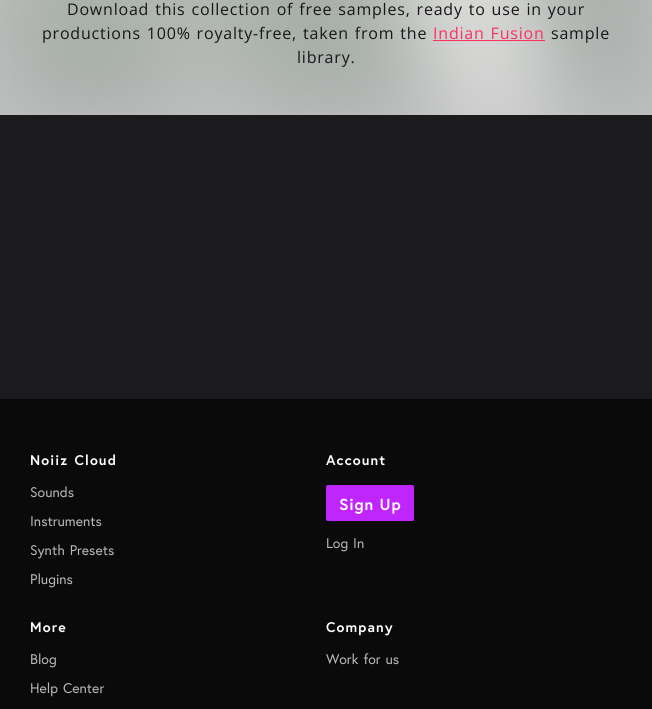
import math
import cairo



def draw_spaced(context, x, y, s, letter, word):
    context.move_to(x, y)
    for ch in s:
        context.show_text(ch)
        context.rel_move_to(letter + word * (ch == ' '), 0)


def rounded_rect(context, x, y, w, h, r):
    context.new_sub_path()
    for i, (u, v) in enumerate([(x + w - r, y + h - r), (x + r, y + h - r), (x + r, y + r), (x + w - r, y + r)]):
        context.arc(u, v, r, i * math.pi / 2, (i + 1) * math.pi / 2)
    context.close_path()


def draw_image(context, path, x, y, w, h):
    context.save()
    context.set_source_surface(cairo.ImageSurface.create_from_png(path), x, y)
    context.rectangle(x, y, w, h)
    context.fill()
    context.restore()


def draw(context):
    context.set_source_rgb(27 / 255, 27 / 255, 30 / 255)
    context.paint()
    context.set_source_rgb(198 / 255, 198 / 255, 199 / 255)
    context.rectangle(0, 0, 652, 115)
    context.fill()
    draw_image(context, "images/1.png", 0, 0, 652, 115)
    context.set_source_rgb(1, 46 / 255, 95 / 255)
    context.rectangle(433, 40, 112, 1)
    context.fill()
    context.set_source_rgb(10 / 255, 10 / 255, 10 / 255)
    context.rectangle(0, 399, 652, 310)
    context.fill()
    context.set_source_rgb(191 / 255, 38 / 255, 251 / 255)
    rounded_rect(context, 326, 485, 88, 36, 2)
    context.fill()
    context.select_font_face("Open Sans")
    context.set_font_size(16)
    context.set_source_rgb(23 / 255, 23 / 255, 23 / 255)
    draw_spaced(context, 67, 15, "Download this collection of free samples, ready to use in your", 0.8, 1)
    draw_spaced(context, 42, 39, "productions 100% royalty-free, taken from the", 0.8, 1)
    context.set_source_rgb(1, 46 / 255, 95 / 255)
    draw_spaced(context, 433, 39, "Indian Fusion", 0.8, 1)
    context.set_source_rgb(23 / 255, 23 / 255, 23 / 255)
    draw_spaced(context, 551, 39, "sample", 0.8, 0)
    draw_spaced(context, 297, 63, "library.", 0.8, 0)
    context.select_font_face("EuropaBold", cairo.FontSlant.NORMAL, cairo.FontWeight.BOLD)
    context.set_font_size(14)
    context.set_source_rgb(1, 1, 1)
    draw_spaced(context, 30, 465, "Noiiz Cloud", 1.1, 1)
    context.select_font_face("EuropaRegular")
    context.set_source_rgb(183 / 255, 184 / 255, 186 / 255)
    context.move_to(30, 497)
    context.show_text("Sounds")
    context.move_to(30, 526)
    context.show_text("Instruments")
    draw_spaced(context, 30, 555, "Synth Presets", 0, 1)
    context.move_to(30, 584)
    context.show_text("Plugins")
    context.select_font_face("EuropaBold", cairo.FontSlant.NORMAL, cairo.FontWeight.BOLD)
    context.set_source_rgb(1, 1, 1)
    draw_spaced(context, 326, 465, "Account", 1.1, 0)
    context.set_font_size(16)
    draw_spaced(context, 339, 510, "Sign Up", 0.8, 0)
    context.select_font_face("EuropaRegular")
    context.set_font_size(14)
    context.set_source_rgb(183 / 255, 184 / 255, 186 / 255)
    draw_spaced(context, 326, 548, "Log In", 0, 1)
    context.select_font_face("EuropaBold", cairo.FontSlant.NORMAL, cairo.FontWeight.BOLD)
    context.set_source_rgb(1, 1, 1)
    draw_spaced(context, 30, 632, "More", 1.1, 0)
    context.select_font_face("EuropaRegular")
    context.set_source_rgb(183 / 255, 184 / 255, 186 / 255)
    context.move_to(30, 664)
    context.show_text("Blog")
    draw_spaced(context, 30, 693, "Help Center", 0, 1)
    context.select_font_face("EuropaBold", cairo.FontSlant.NORMAL, cairo.FontWeight.BOLD)
    context.set_source_rgb(1, 1, 1)
    draw_spaced(context, 326, 632, "Company", 1.1, 0)
    context.select_font_face("EuropaRegular")
    context.set_source_rgb(183 / 255, 184 / 255, 186 / 255)
    draw_spaced(context, 326, 664, "Work for us", 0, 1)


surface = cairo.ImageSurface(cairo.Format.RGB24, 652, 709)
context = cairo.Context(surface)
options = cairo.FontOptions()
options.set_hint_metrics(cairo.HintMetrics.OFF)
options.set_hint_style(cairo.HintStyle.NONE)
context.set_font_options(options)
context.set_miter_limit(4)
draw(context)
surface.write_to_png("out.png")
